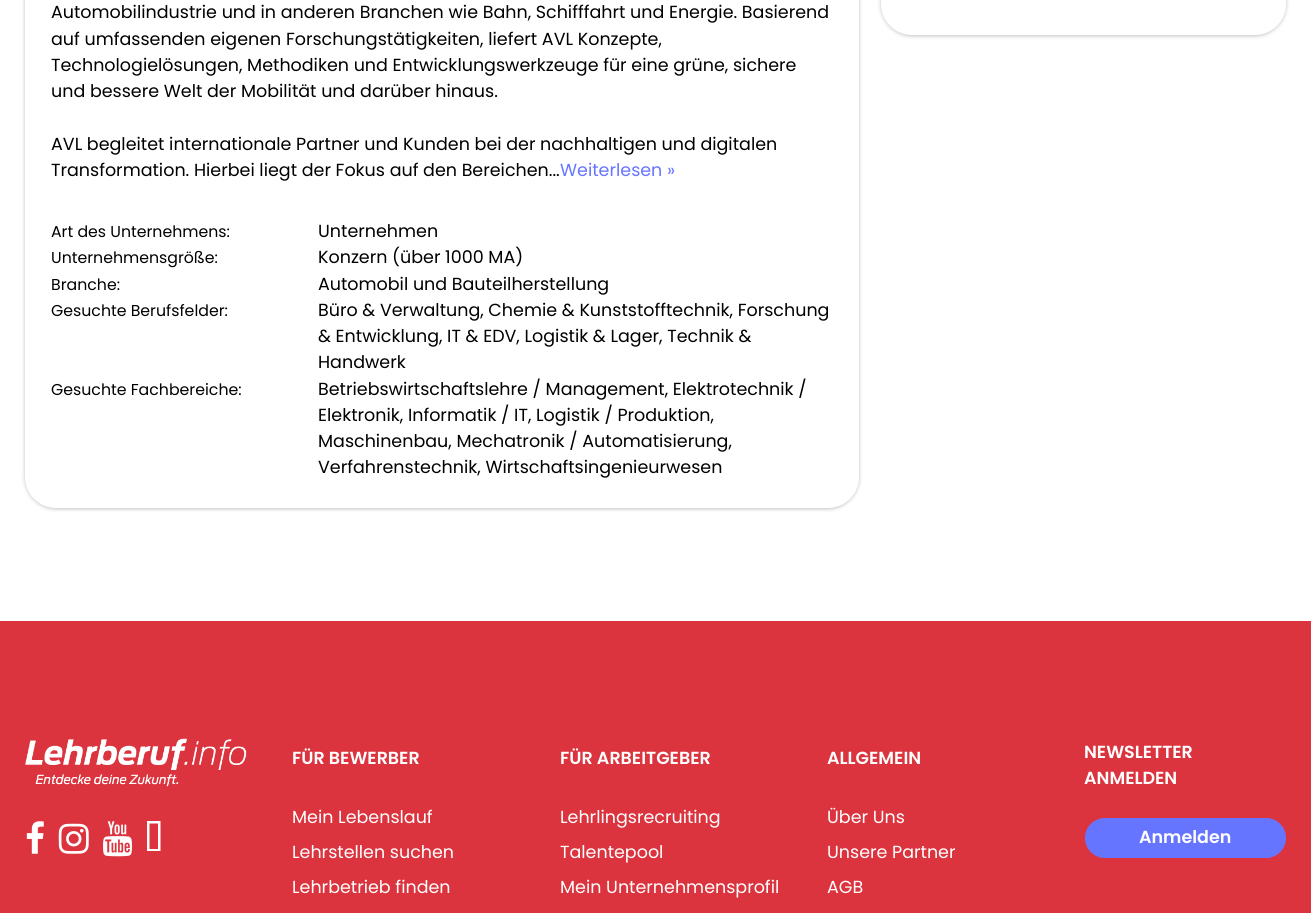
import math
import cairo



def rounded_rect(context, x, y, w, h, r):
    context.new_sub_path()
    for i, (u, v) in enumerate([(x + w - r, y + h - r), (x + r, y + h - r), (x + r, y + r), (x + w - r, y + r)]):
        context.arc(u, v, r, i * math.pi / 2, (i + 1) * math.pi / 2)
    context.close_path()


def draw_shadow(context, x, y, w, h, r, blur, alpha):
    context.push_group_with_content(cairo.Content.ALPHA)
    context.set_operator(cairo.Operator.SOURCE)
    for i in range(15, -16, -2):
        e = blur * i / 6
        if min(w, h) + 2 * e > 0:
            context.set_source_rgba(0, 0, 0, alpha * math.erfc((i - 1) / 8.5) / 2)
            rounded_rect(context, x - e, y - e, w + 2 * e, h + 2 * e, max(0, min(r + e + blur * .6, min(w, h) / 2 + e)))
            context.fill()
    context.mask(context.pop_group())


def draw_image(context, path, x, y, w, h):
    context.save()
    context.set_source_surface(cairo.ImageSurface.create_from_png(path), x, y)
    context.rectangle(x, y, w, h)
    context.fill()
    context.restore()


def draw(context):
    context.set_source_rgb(1, 1, 1)
    context.paint()
    context.set_source_rgb(0, 0, 0)
    draw_shadow(context, 25, -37, 834, 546, 31, 2, 0.25)
    context.set_source_rgb(1, 1, 1)
    rounded_rect(context, 25, -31, 834, 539, 31)
    context.fill()
    context.set_source_rgb(0, 0, 0)
    draw_shadow(context, 881, -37, 405, 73, 31, 2, 0.25)
    context.set_source_rgb(1, 1, 1)
    rounded_rect(context, 881, -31, 405, 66, 31)
    context.fill()
    context.set_source_rgb(219 / 255, 52 / 255, 62 / 255)
    context.rectangle(0, 621, 1311, 292)
    context.fill()
    draw_image(context, "images/1.png", 25, 738, 222, 49)
    draw_image(context, "images/2.png", 26, 821, 18, 33)
    draw_image(context, "images/3.png", 58, 823, 31, 31)
    draw_image(context, "images/4.png", 103, 821, 29, 36)
    context.set_source_rgb(1, 1, 1)
    context.new_path()
    context.move_to(149.5, 849)
    context.line_to(149.5, 823.5)
    context.line_to(158, 823.5)
    context.line_to(158, 849)
    context.close_path()
    context.move_to(147, 851)
    context.line_to(160.5, 851)
    context.line_to(160.5, 821)
    context.line_to(147, 821)
    context.close_path()
    context.fill()
    context.set_source_rgb(102 / 255, 117 / 255, 1)
    rounded_rect(context, 1085.5, 818.5, 200, 39, 19.5)
    context.fill_preserve()
    context.set_line_width(1)
    context.stroke()
    context.select_font_face("Poppins")
    context.set_font_size(17.5)
    context.set_source_rgb(0, 0, 0)
    context.move_to(51, 18)
    context.show_text("Automobilindustrie und in anderen Branchen wie Bahn, Schifffahrt und Energie. Basierend")
    context.move_to(51, 45)
    context.show_text("auf umfassenden eigenen Forschungstätigkeiten, liefert AVL Konzepte,")
    context.move_to(51, 71)
    context.show_text("Technologielösungen, Methodiken und Entwicklungswerkzeuge für eine grüne, sichere")
    context.move_to(51, 97)
    context.show_text("und bessere Welt der Mobilität und darüber hinaus.")
    context.move_to(51, 150)
    context.show_text("AVL begleitet internationale Partner und Kunden bei der nachhaltigen und digitalen")
    context.move_to(51, 176)
    context.show_text("Transformation. Hierbei liegt der Fokus auf den Bereichen...")
    context.set_source_rgb(102 / 255, 117 / 255, 1)
    context.move_to(560, 176)
    context.show_text("Weiterlesen »")
    context.set_font_size(15.75)
    context.set_source_rgb(0, 0, 0)
    context.move_to(51, 237)
    context.show_text("Art des Unternehmens:")
    context.set_font_size(17.5)
    context.move_to(318, 237)
    context.show_text("Unternehmen")
    context.set_font_size(15.75)
    context.move_to(51, 263)
    context.show_text("Unternehmensgröße:")
    context.set_font_size(17.5)
    context.move_to(318, 263)
    context.show_text("Konzern (über 1000 MA)")
    context.set_font_size(15.75)
    context.move_to(51, 290)
    context.show_text("Branche:")
    context.set_font_size(17.5)
    context.move_to(318, 290)
    context.show_text("Automobil und Bauteilherstellung")
    context.set_font_size(15.75)
    context.move_to(51, 316)
    context.show_text("Gesuchte Berufsfelder:")
    context.set_font_size(17.5)
    context.move_to(318, 316)
    context.show_text("Büro & Verwaltung, Chemie & Kunststofftechnik, Forschung")
    context.move_to(318, 342)
    context.show_text("& Entwicklung, IT & EDV, Logistik & Lager, Technik &")
    context.move_to(318, 368)
    context.show_text("Handwerk")
    context.set_font_size(15.75)
    context.move_to(51, 395)
    context.show_text("Gesuchte Fachbereiche:")
    context.set_font_size(17.5)
    context.move_to(318, 395)
    context.show_text("Betriebswirtschaftslehre / Management, Elektrotechnik /")
    context.move_to(318, 421)
    context.show_text("Elektronik, Informatik / IT, Logistik / Produktion,")
    context.move_to(318, 447)
    context.show_text("Maschinenbau, Mechatronik / Automatisierung,")
    context.move_to(318, 473)
    context.show_text("Verfahrenstechnik, Wirtschaftsingenieurwesen")
    context.select_font_face("Poppins SemiBold")
    context.set_source_rgb(1, 1, 1)
    context.move_to(292, 764)
    context.show_text("FÜR BEWERBER")
    context.select_font_face("Poppins")
    context.move_to(292, 823)
    context.show_text("Mein Lebenslauf")
    context.move_to(292, 858)
    context.show_text("Lehrstellen suchen")
    context.move_to(292, 893)
    context.show_text("Lehrbetrieb finden")
    context.select_font_face("Poppins SemiBold")
    context.move_to(560, 764)
    context.show_text("FÜR ARBEITGEBER")
    context.select_font_face("Poppins")
    context.move_to(560, 823)
    context.show_text("Lehrlingsrecruiting")
    context.move_to(560, 858)
    context.show_text("Talentepool")
    context.move_to(560, 893)
    context.show_text("Mein Unternehmensprofil")
    context.select_font_face("Poppins SemiBold")
    context.move_to(827, 764)
    context.show_text("ALLGEMEIN")
    context.select_font_face("Poppins")
    context.move_to(827, 823)
    context.show_text("Über Uns")
    context.move_to(827, 858)
    context.show_text("Unsere Partner")
    context.move_to(827, 893)
    context.show_text("AGB")
    context.select_font_face("Poppins SemiBold")
    context.move_to(1084, 758)
    context.show_text("NEWSLETTER")
    context.move_to(1084, 784)
    context.show_text("ANMELDEN")
    context.move_to(1139, 843)
    context.show_text("Anmelden")


surface = cairo.ImageSurface(cairo.Format.RGB24, 1311, 913)
context = cairo.Context(surface)
options = cairo.FontOptions()
options.set_hint_metrics(cairo.HintMetrics.OFF)
options.set_hint_style(cairo.HintStyle.NONE)
context.set_font_options(options)
context.set_miter_limit(4)
draw(context)
surface.write_to_png("out.png")
